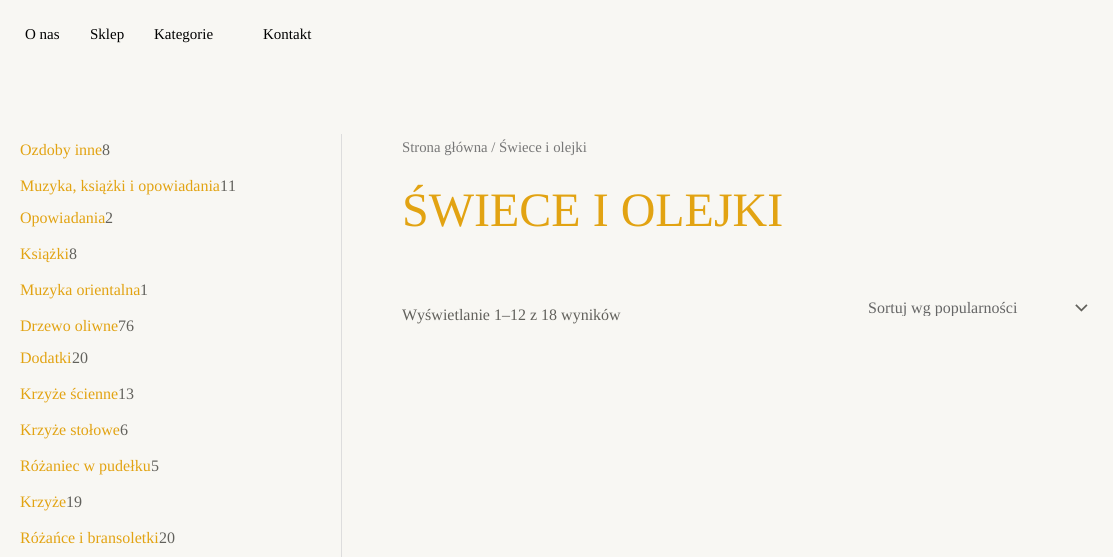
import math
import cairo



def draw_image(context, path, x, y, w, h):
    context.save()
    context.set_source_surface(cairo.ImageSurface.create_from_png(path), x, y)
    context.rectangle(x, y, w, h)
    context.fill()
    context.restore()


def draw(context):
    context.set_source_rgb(248 / 255, 247 / 255, 243 / 255)
    context.paint()
    context.set_source_rgb(221 / 255, 221 / 255, 221 / 255)
    context.rectangle(341, 134, 1, 423)
    context.fill()
    draw_image(context, "images/1.png", 1075, 304, 13, 8)
    context.select_font_face("Liberation Serif")
    context.set_font_size(15)
    context.set_source_rgb(0, 0, 0)
    context.move_to(25, 39)
    context.show_text("O nas")
    context.move_to(90, 39)
    context.show_text("Sklep")
    context.move_to(154, 39)
    context.show_text("Kategorie")
    context.move_to(263, 39)
    context.show_text("Kontakt")
    context.set_font_size(16)
    context.set_source_rgb(226 / 255, 163 / 255, 18 / 255)
    context.move_to(20, 155)
    context.show_text("Ozdoby inne")
    context.set_source_rgb(98 / 255, 97 / 255, 92 / 255)
    context.move_to(102, 155)
    context.show_text("8")
    context.set_source_rgb(226 / 255, 163 / 255, 18 / 255)
    context.move_to(20, 191)
    context.show_text("Muzyka, książki i opowiadania")
    context.set_source_rgb(98 / 255, 97 / 255, 92 / 255)
    context.move_to(220, 191)
    context.show_text("11")
    context.set_source_rgb(226 / 255, 163 / 255, 18 / 255)
    context.move_to(20, 223)
    context.show_text("Opowiadania")
    context.set_source_rgb(98 / 255, 97 / 255, 92 / 255)
    context.move_to(105, 223)
    context.show_text("2")
    context.set_source_rgb(226 / 255, 163 / 255, 18 / 255)
    context.move_to(20, 259)
    context.show_text("Książki")
    context.set_source_rgb(98 / 255, 97 / 255, 92 / 255)
    context.move_to(69, 259)
    context.show_text("8")
    context.set_source_rgb(226 / 255, 163 / 255, 18 / 255)
    context.move_to(20, 295)
    context.show_text("Muzyka orientalna")
    context.set_source_rgb(98 / 255, 97 / 255, 92 / 255)
    context.move_to(140, 295)
    context.show_text("1")
    context.set_source_rgb(226 / 255, 163 / 255, 18 / 255)
    context.move_to(20, 331)
    context.show_text("Drzewo oliwne")
    context.set_source_rgb(98 / 255, 97 / 255, 92 / 255)
    context.move_to(118, 331)
    context.show_text("76")
    context.set_source_rgb(226 / 255, 163 / 255, 18 / 255)
    context.move_to(20, 363)
    context.show_text("Dodatki")
    context.set_source_rgb(98 / 255, 97 / 255, 92 / 255)
    context.move_to(72, 363)
    context.show_text("20")
    context.set_source_rgb(226 / 255, 163 / 255, 18 / 255)
    context.move_to(20, 399)
    context.show_text("Krzyże ścienne")
    context.set_source_rgb(98 / 255, 97 / 255, 92 / 255)
    context.move_to(118, 399)
    context.show_text("13")
    context.set_source_rgb(226 / 255, 163 / 255, 18 / 255)
    context.move_to(20, 435)
    context.show_text("Krzyże stołowe")
    context.set_source_rgb(98 / 255, 97 / 255, 92 / 255)
    context.move_to(120, 435)
    context.show_text("6")
    context.set_source_rgb(226 / 255, 163 / 255, 18 / 255)
    context.move_to(20, 471)
    context.show_text("Różaniec w pudełku")
    context.set_source_rgb(98 / 255, 97 / 255, 92 / 255)
    context.move_to(151, 471)
    context.show_text("5")
    context.set_source_rgb(226 / 255, 163 / 255, 18 / 255)
    context.move_to(20, 507)
    context.show_text("Krzyże")
    context.set_source_rgb(98 / 255, 97 / 255, 92 / 255)
    context.move_to(66, 507)
    context.show_text("19")
    context.set_source_rgb(226 / 255, 163 / 255, 18 / 255)
    context.move_to(20, 543)
    context.show_text("Różańce i bransoletki")
    context.set_source_rgb(98 / 255, 97 / 255, 92 / 255)
    context.move_to(159, 543)
    context.show_text("20")
    context.set_font_size(14.75)
    context.set_source_rgb(119 / 255, 119 / 255, 119 / 255)
    context.move_to(402, 152)
    context.show_text("Strona główna / Świece i olejki")
    context.set_font_size(48)
    context.set_source_rgb(226 / 255, 163 / 255, 18 / 255)
    context.move_to(402, 226)
    context.show_text("ŚWIECE I OLEJKI")
    context.set_font_size(16)
    context.set_source_rgb(98 / 255, 97 / 255, 92 / 255)
    context.move_to(402, 320)
    context.show_text("Wyświetlanie 1–12 z 18 wyników")
    context.save()
    context.rectangle(868, 299, 192, 17)
    context.clip()
    context.set_source_rgb(102 / 255, 102 / 255, 102 / 255)
    context.move_to(868, 313)
    context.show_text("Sortuj wg popularności")
    context.restore()


surface = cairo.ImageSurface(cairo.Format.RGB24, 1113, 557)
context = cairo.Context(surface)
options = cairo.FontOptions()
options.set_hint_metrics(cairo.HintMetrics.OFF)
options.set_hint_style(cairo.HintStyle.NONE)
context.set_font_options(options)
context.set_miter_limit(4)
draw(context)
surface.write_to_png("out.png")
